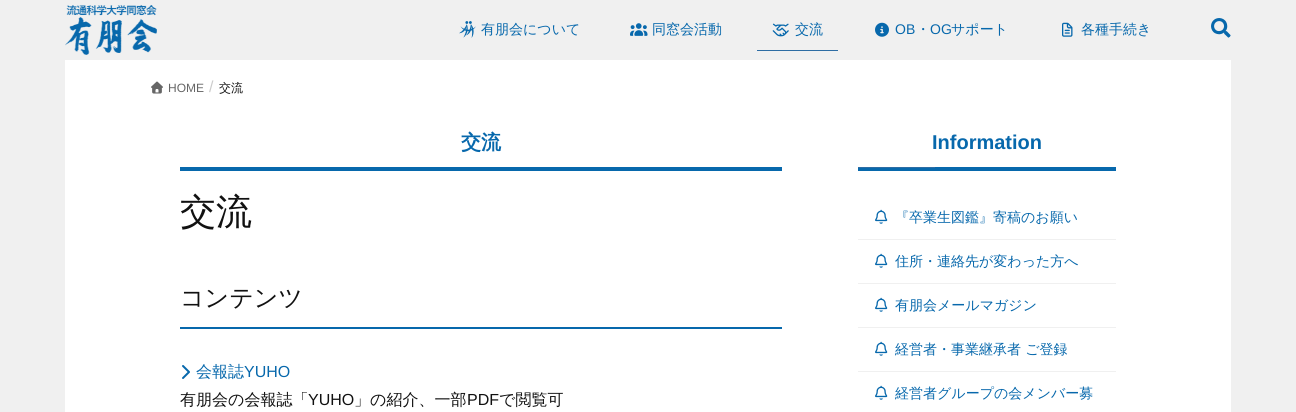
import math
import cairo



def draw_image(context, path, x, y, w, h):
    context.save()
    context.set_source_surface(cairo.ImageSurface.create_from_png(path), x, y)
    context.rectangle(x, y, w, h)
    context.fill()
    context.restore()


def draw(context):
    context.set_source_rgb(240 / 255, 240 / 255, 240 / 255)
    context.paint()
    draw_image(context, "images/1.png", 65, 5, 92, 50)
    draw_image(context, "images/2.png", 459, 21, 17, 17)
    draw_image(context, "images/3.png", 630, 23, 18, 13)
    draw_image(context, "images/4.png", 772, 23, 17, 14)
    context.set_source_rgb(46 / 255, 109 / 255, 164 / 255)
    context.rectangle(757, 50, 81, 1)
    context.fill()
    draw_image(context, "images/5.png", 875, 22, 14, 15)
    draw_image(context, "images/6.png", 1062, 22, 11, 15)
    draw_image(context, "images/7.png", 1211, 18, 20, 20)
    context.set_source_rgb(1, 1, 1)
    context.rectangle(65, 60, 1166, 352)
    context.fill()
    draw_image(context, "images/8.png", 151, 81, 12, 13)
    context.set_source_rgb(7 / 255, 104 / 255, 172 / 255)
    context.rectangle(180, 167, 602, 4)
    context.fill()
    context.rectangle(180, 327, 602, 2)
    context.fill()
    draw_image(context, "images/9.png", 182, 365, 8, 14)
    context.rectangle(858, 167, 258, 4)
    context.fill()
    context.set_source_rgb(46 / 255, 109 / 255, 164 / 255)
    context.rectangle(858, 167, 77, 1)
    context.fill()
    context.set_source_rgb(240 / 255, 240 / 255, 240 / 255)
    context.rectangle(858, 239, 258, 1)
    context.fill()
    draw_image(context, "images/10.png", 875, 209, 13, 15)
    context.rectangle(858, 283, 258, 1)
    context.fill()
    draw_image(context, "images/10.png", 875, 253, 13, 15)
    context.rectangle(858, 327, 258, 1)
    context.fill()
    draw_image(context, "images/10.png", 875, 297, 13, 15)
    context.rectangle(858, 371, 258, 1)
    context.fill()
    draw_image(context, "images/10.png", 875, 341, 13, 15)
    draw_image(context, "images/10.png", 875, 385, 13, 15)
    context.select_font_face("WenQuanYi Zen Hei Medium")
    context.set_font_size(14)
    context.set_source_rgb(7 / 255, 104 / 255, 172 / 255)
    context.move_to(481, 34)
    context.show_text("有朋会について")
    context.move_to(652, 34)
    context.show_text("同窓会活動")
    context.move_to(795, 34)
    context.show_text("交流")
    context.select_font_face("Liberation Sans")
    context.move_to(895, 34)
    context.show_text("OB")
    context.select_font_face("WenQuanYi Zen Hei Medium")
    context.move_to(916, 34)
    context.show_text("・")
    context.select_font_face("Liberation Sans")
    context.move_to(930, 34)
    context.show_text("OG")
    context.select_font_face("WenQuanYi Zen Hei Medium")
    context.move_to(951, 34)
    context.show_text("サポート")
    context.move_to(1081, 34)
    context.show_text("各種手続き")
    context.select_font_face("Liberation Sans")
    context.set_font_size(12)
    context.set_source_rgb(102 / 255, 102 / 255, 102 / 255)
    context.move_to(168, 92)
    context.show_text("HOME")
    context.set_font_size(16)
    context.set_source_rgb(204 / 255, 204 / 255, 204 / 255)
    context.move_to(209, 92)
    context.show_text("/")
    context.select_font_face("WenQuanYi Zen Hei Medium")
    context.set_font_size(12)
    context.set_source_rgb(17 / 255, 17 / 255, 17 / 255)
    context.move_to(219, 92)
    context.show_text("交流")
    context.select_font_face("WenQuanYi Zen Hei", cairo.FontSlant.NORMAL, cairo.FontWeight.BOLD)
    context.set_font_size(20)
    context.set_source_rgb(7 / 255, 104 / 255, 172 / 255)
    context.move_to(461, 149)
    context.show_text("交流")
    context.select_font_face("WenQuanYi Zen Hei Medium")
    context.set_font_size(36)
    context.set_source_rgb(17 / 255, 17 / 255, 17 / 255)
    context.move_to(180, 224)
    context.show_text("交流")
    context.set_font_size(24)
    context.move_to(180, 306)
    context.show_text("コンテンツ")
    context.set_font_size(16)
    context.set_source_rgb(7 / 255, 104 / 255, 172 / 255)
    context.move_to(196, 377)
    context.show_text("会報誌")
    context.select_font_face("Liberation Sans")
    context.move_to(244, 377)
    context.show_text("YUHO")
    context.select_font_face("WenQuanYi Zen Hei Medium")
    context.set_source_rgb(17 / 255, 17 / 255, 17 / 255)
    context.move_to(180, 405)
    context.show_text("有朋会の会報誌「")
    context.select_font_face("Liberation Sans")
    context.move_to(308, 405)
    context.show_text("YUHO")
    context.select_font_face("WenQuanYi Zen Hei Medium")
    context.move_to(354, 405)
    context.show_text("」の紹介、一部")
    context.select_font_face("Liberation Sans")
    context.move_to(467, 405)
    context.show_text("PDF")
    context.select_font_face("WenQuanYi Zen Hei Medium")
    context.move_to(499, 405)
    context.show_text("で閲覧可")
    context.select_font_face("Liberation Sans", cairo.FontSlant.NORMAL, cairo.FontWeight.BOLD)
    context.set_font_size(20)
    context.set_source_rgb(7 / 255, 104 / 255, 172 / 255)
    context.move_to(932, 149)
    context.show_text("Information")
    context.select_font_face("WenQuanYi Zen Hei Medium")
    context.set_font_size(14)
    context.move_to(895, 222)
    context.show_text("『卒業生図鑑』寄稿のお願い")
    context.move_to(895, 266)
    context.show_text("住所・連絡先が変わった方へ")
    context.move_to(895, 310)
    context.show_text("有朋会メールマガジン")
    context.move_to(895, 354)
    context.show_text("経営者・事業継承者 ご登録")
    context.move_to(895, 398)
    context.show_text("経営者グループの会メンバー募")


surface = cairo.ImageSurface(cairo.Format.RGB24, 1296, 412)
context = cairo.Context(surface)
options = cairo.FontOptions()
options.set_hint_metrics(cairo.HintMetrics.OFF)
options.set_hint_style(cairo.HintStyle.NONE)
context.set_font_options(options)
context.set_miter_limit(4)
draw(context)
surface.write_to_png("out.png")
